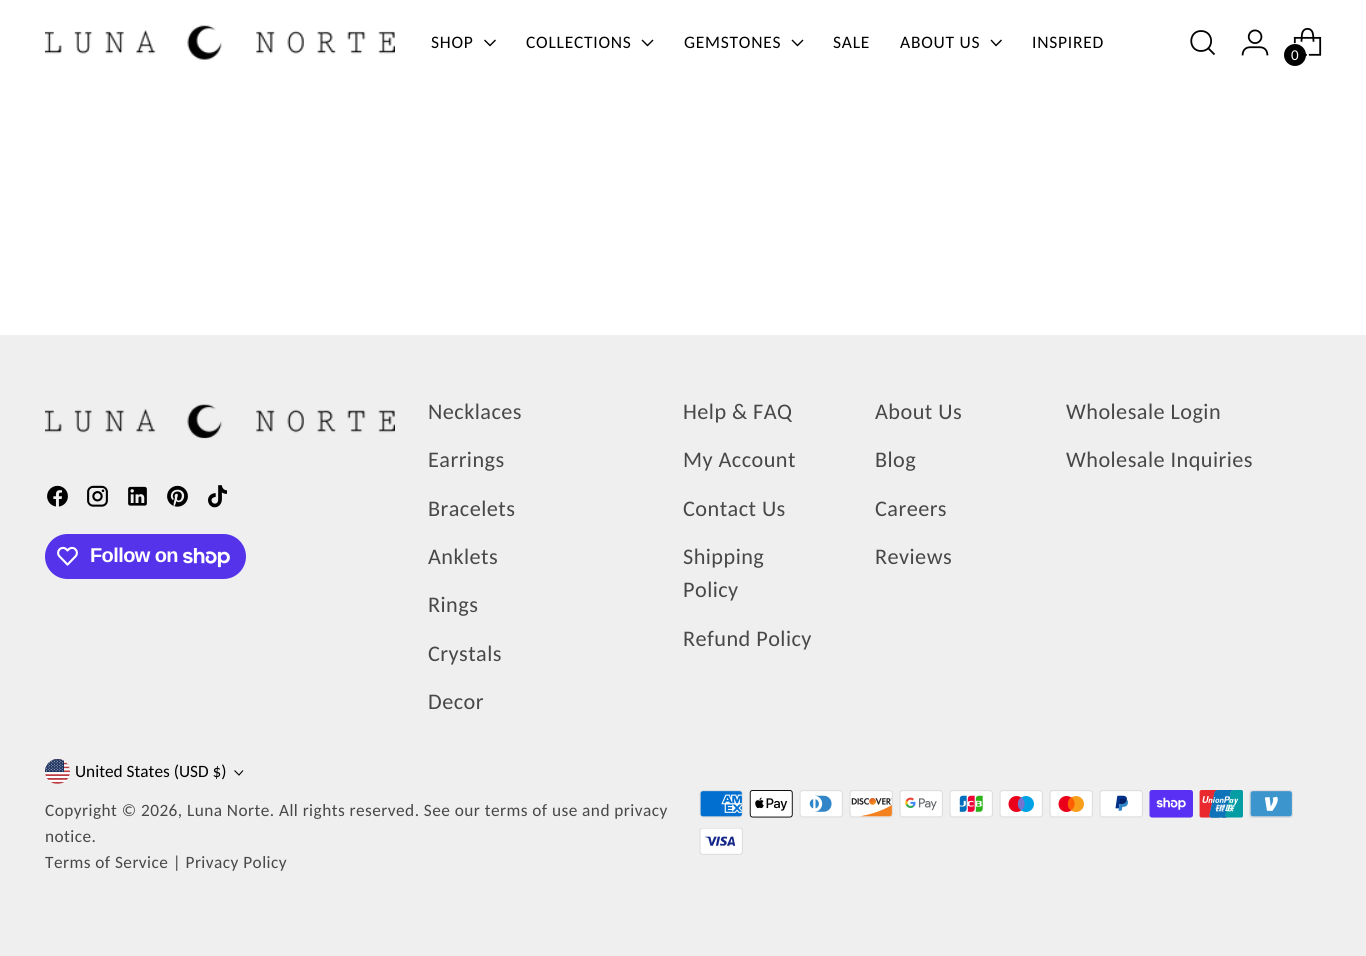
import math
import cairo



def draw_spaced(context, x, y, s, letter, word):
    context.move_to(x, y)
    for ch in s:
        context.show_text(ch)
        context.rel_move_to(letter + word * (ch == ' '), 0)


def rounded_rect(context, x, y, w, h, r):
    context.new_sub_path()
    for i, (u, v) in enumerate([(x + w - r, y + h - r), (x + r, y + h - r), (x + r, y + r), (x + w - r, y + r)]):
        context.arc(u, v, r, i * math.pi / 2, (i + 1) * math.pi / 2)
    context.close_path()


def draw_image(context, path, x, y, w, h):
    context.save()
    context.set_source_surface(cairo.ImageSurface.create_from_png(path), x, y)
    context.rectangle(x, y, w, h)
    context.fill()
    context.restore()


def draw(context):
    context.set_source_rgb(1, 1, 1)
    context.paint()
    draw_image(context, "images/1.png", 45, 25, 350, 35)
    context.new_path()
    context.move_to(484.5, 40)
    context.line_to(490, 45.5)
    context.line_to(495.5, 40)
    context.set_source_rgb(0, 0, 0)
    context.set_line_width(1.4)
    context.stroke()
    context.new_path()
    context.move_to(642, 40)
    context.line_to(647.5, 45.5)
    context.line_to(653, 40)
    context.stroke()
    context.new_path()
    context.move_to(792, 40)
    context.line_to(797.5, 45.5)
    context.line_to(803, 40)
    context.stroke()
    context.new_path()
    context.move_to(991, 40)
    context.line_to(996, 45.5)
    context.line_to(1001.5, 40)
    context.stroke()
    context.new_path()
    context.move_to(1201, 51)
    context.curve_to(1214.5, 51, 1214.5, 31, 1201, 31)
    context.curve_to(1188, 31, 1188, 51, 1201, 51)
    context.close_path()
    context.set_line_width(1.8)
    context.set_line_cap(cairo.LineCap.ROUND)
    context.stroke()
    context.new_path()
    context.move_to(1208.5, 48.5)
    context.line_to(1214.5, 54.5)
    context.set_line_cap(cairo.LineCap.BUTT)
    context.stroke()
    draw_image(context, "images/2.png", 1241, 29, 28, 27)
    draw_image(context, "images/3.png", 1293, 28, 29, 28)
    context.arc(1296, 56, 12, 0, 2 * math.pi)
    context.set_source_rgb(1, 1, 1)
    context.set_line_width(2)
    context.stroke()
    context.set_source_rgb(0, 0, 0)
    context.arc(1295, 55, 11, 0, 2 * math.pi)
    context.fill()
    context.set_source_rgb(239 / 255, 239 / 255, 239 / 255)
    context.rectangle(0, 335, 1366, 621)
    context.fill()
    draw_image(context, "images/4.png", 45, 404, 350, 35)
    draw_image(context, "images/5.png", 47, 485, 21, 22)
    draw_image(context, "images/6.png", 87, 485, 21, 22)
    draw_image(context, "images/7.png", 128, 486, 19, 20)
    draw_image(context, "images/8.png", 167, 485, 21, 22)
    draw_image(context, "images/9.png", 208, 485, 20, 23)
    context.set_source_rgb(84 / 255, 51 / 255, 235 / 255)
    rounded_rect(context, 45, 534, 201, 45, 22.5)
    context.fill()
    draw_image(context, "images/10.png", 57, 546, 21, 20)
    draw_image(context, "images/11.png", 183, 548, 47, 20)
    draw_image(context, "images/12.png", 45, 759, 25, 25)
    context.new_path()
    context.move_to(234.5, 770.5)
    context.line_to(239, 775)
    context.line_to(243, 770.5)
    context.set_source_rgb(0, 0, 0)
    context.set_line_width(1.1)
    context.stroke()
    draw_image(context, "images/13.png", 699, 790, 44, 28)
    draw_image(context, "images/14.png", 749, 790, 44, 28)
    draw_image(context, "images/15.png", 799, 790, 44, 28)
    draw_image(context, "images/16.png", 849, 790, 44, 28)
    draw_image(context, "images/17.png", 899, 790, 44, 28)
    draw_image(context, "images/18.png", 949, 790, 44, 28)
    draw_image(context, "images/19.png", 999, 790, 44, 28)
    draw_image(context, "images/20.png", 1049, 790, 44, 28)
    draw_image(context, "images/21.png", 1099, 790, 44, 28)
    draw_image(context, "images/22.png", 1149, 790, 44, 28)
    draw_image(context, "images/23.png", 1199, 790, 44, 28)
    draw_image(context, "images/24.png", 1249, 790, 44, 28)
    draw_image(context, "images/25.png", 699, 828, 44, 27)
    context.select_font_face("Carlito")
    context.set_font_size(17.5)
    draw_spaced(context, 431, 48, "SHOP", 0.75, 0)
    draw_spaced(context, 526, 48, "COLLECTIONS", 0.75, 0)
    draw_spaced(context, 684, 48, "GEMSTONES", 0.75, 0)
    draw_spaced(context, 833, 48, "SALE", 0.75, 0)
    draw_spaced(context, 900, 48, "ABOUT US", 0.75, 0)
    draw_spaced(context, 1032, 48, "INSPIRED", 0.75, 0)
    context.set_font_size(15)
    context.set_source_rgb(1, 1, 1)
    draw_spaced(context, 1291, 60, "0", 0.45, 0)
    context.set_font_size(22.25)
    context.set_source_rgb(72 / 255, 72 / 255, 72 / 255)
    draw_spaced(context, 428, 419, "Necklaces", 0.45, 0)
    draw_spaced(context, 428, 467, "Earrings", 0.45, 0)
    draw_spaced(context, 428, 516, "Bracelets", 0.45, 0)
    draw_spaced(context, 428, 564, "Anklets", 0.45, 0)
    draw_spaced(context, 428, 612, "Rings", 0.45, 0)
    draw_spaced(context, 428, 661, "Crystals", 0.45, 0)
    draw_spaced(context, 428, 709, "Decor", 0.45, 0)
    draw_spaced(context, 683, 419, "Help & FAQ", 0.45, 0)
    draw_spaced(context, 683, 467, "My Account", 0.45, 0)
    draw_spaced(context, 683, 516, "Contact Us", 0.45, 0)
    draw_spaced(context, 683, 564, "Shipping", 0.45, 0)
    draw_spaced(context, 683, 597, "Policy", 0.45, 0)
    draw_spaced(context, 683, 646, "Refund Policy", 0.45, 0)
    draw_spaced(context, 875, 419, "About Us", 0.45, 0)
    draw_spaced(context, 875, 467, "Blog", 0.45, 0)
    draw_spaced(context, 875, 516, "Careers", 0.45, 0)
    draw_spaced(context, 875, 564, "Reviews", 0.45, 0)
    draw_spaced(context, 1066, 419, "Wholesale Login", 0.45, 0)
    draw_spaced(context, 1066, 467, "Wholesale Inquiries", 0.45, 0)
    context.select_font_face("Liberation Sans", cairo.FontSlant.NORMAL, cairo.FontWeight.BOLD)
    context.set_font_size(20)
    context.set_source_rgb(1, 1, 1)
    draw_spaced(context, 90, 562, "Follow on", -0.6, 0)
    context.select_font_face("Carlito")
    context.set_font_size(17.3)
    context.set_source_rgb(0, 0, 0)
    context.move_to(75, 777)
    context.show_text("United States (USD $)")
    context.set_source_rgb(72 / 255, 72 / 255, 72 / 255)
    draw_spaced(context, 45, 816, "Copyright © 2026, Luna Norte. All rights reserved. See our terms of use and privacy", 0.45, 0)
    draw_spaced(context, 45, 842, "notice.", 0.45, 0)
    draw_spaced(context, 45, 868, "Terms of Service | Privacy Policy", 0.45, 0)


surface = cairo.ImageSurface(cairo.Format.RGB24, 1366, 956)
context = cairo.Context(surface)
options = cairo.FontOptions()
options.set_hint_metrics(cairo.HintMetrics.OFF)
options.set_hint_style(cairo.HintStyle.NONE)
context.set_font_options(options)
context.set_miter_limit(4)
draw(context)
surface.write_to_png("out.png")
